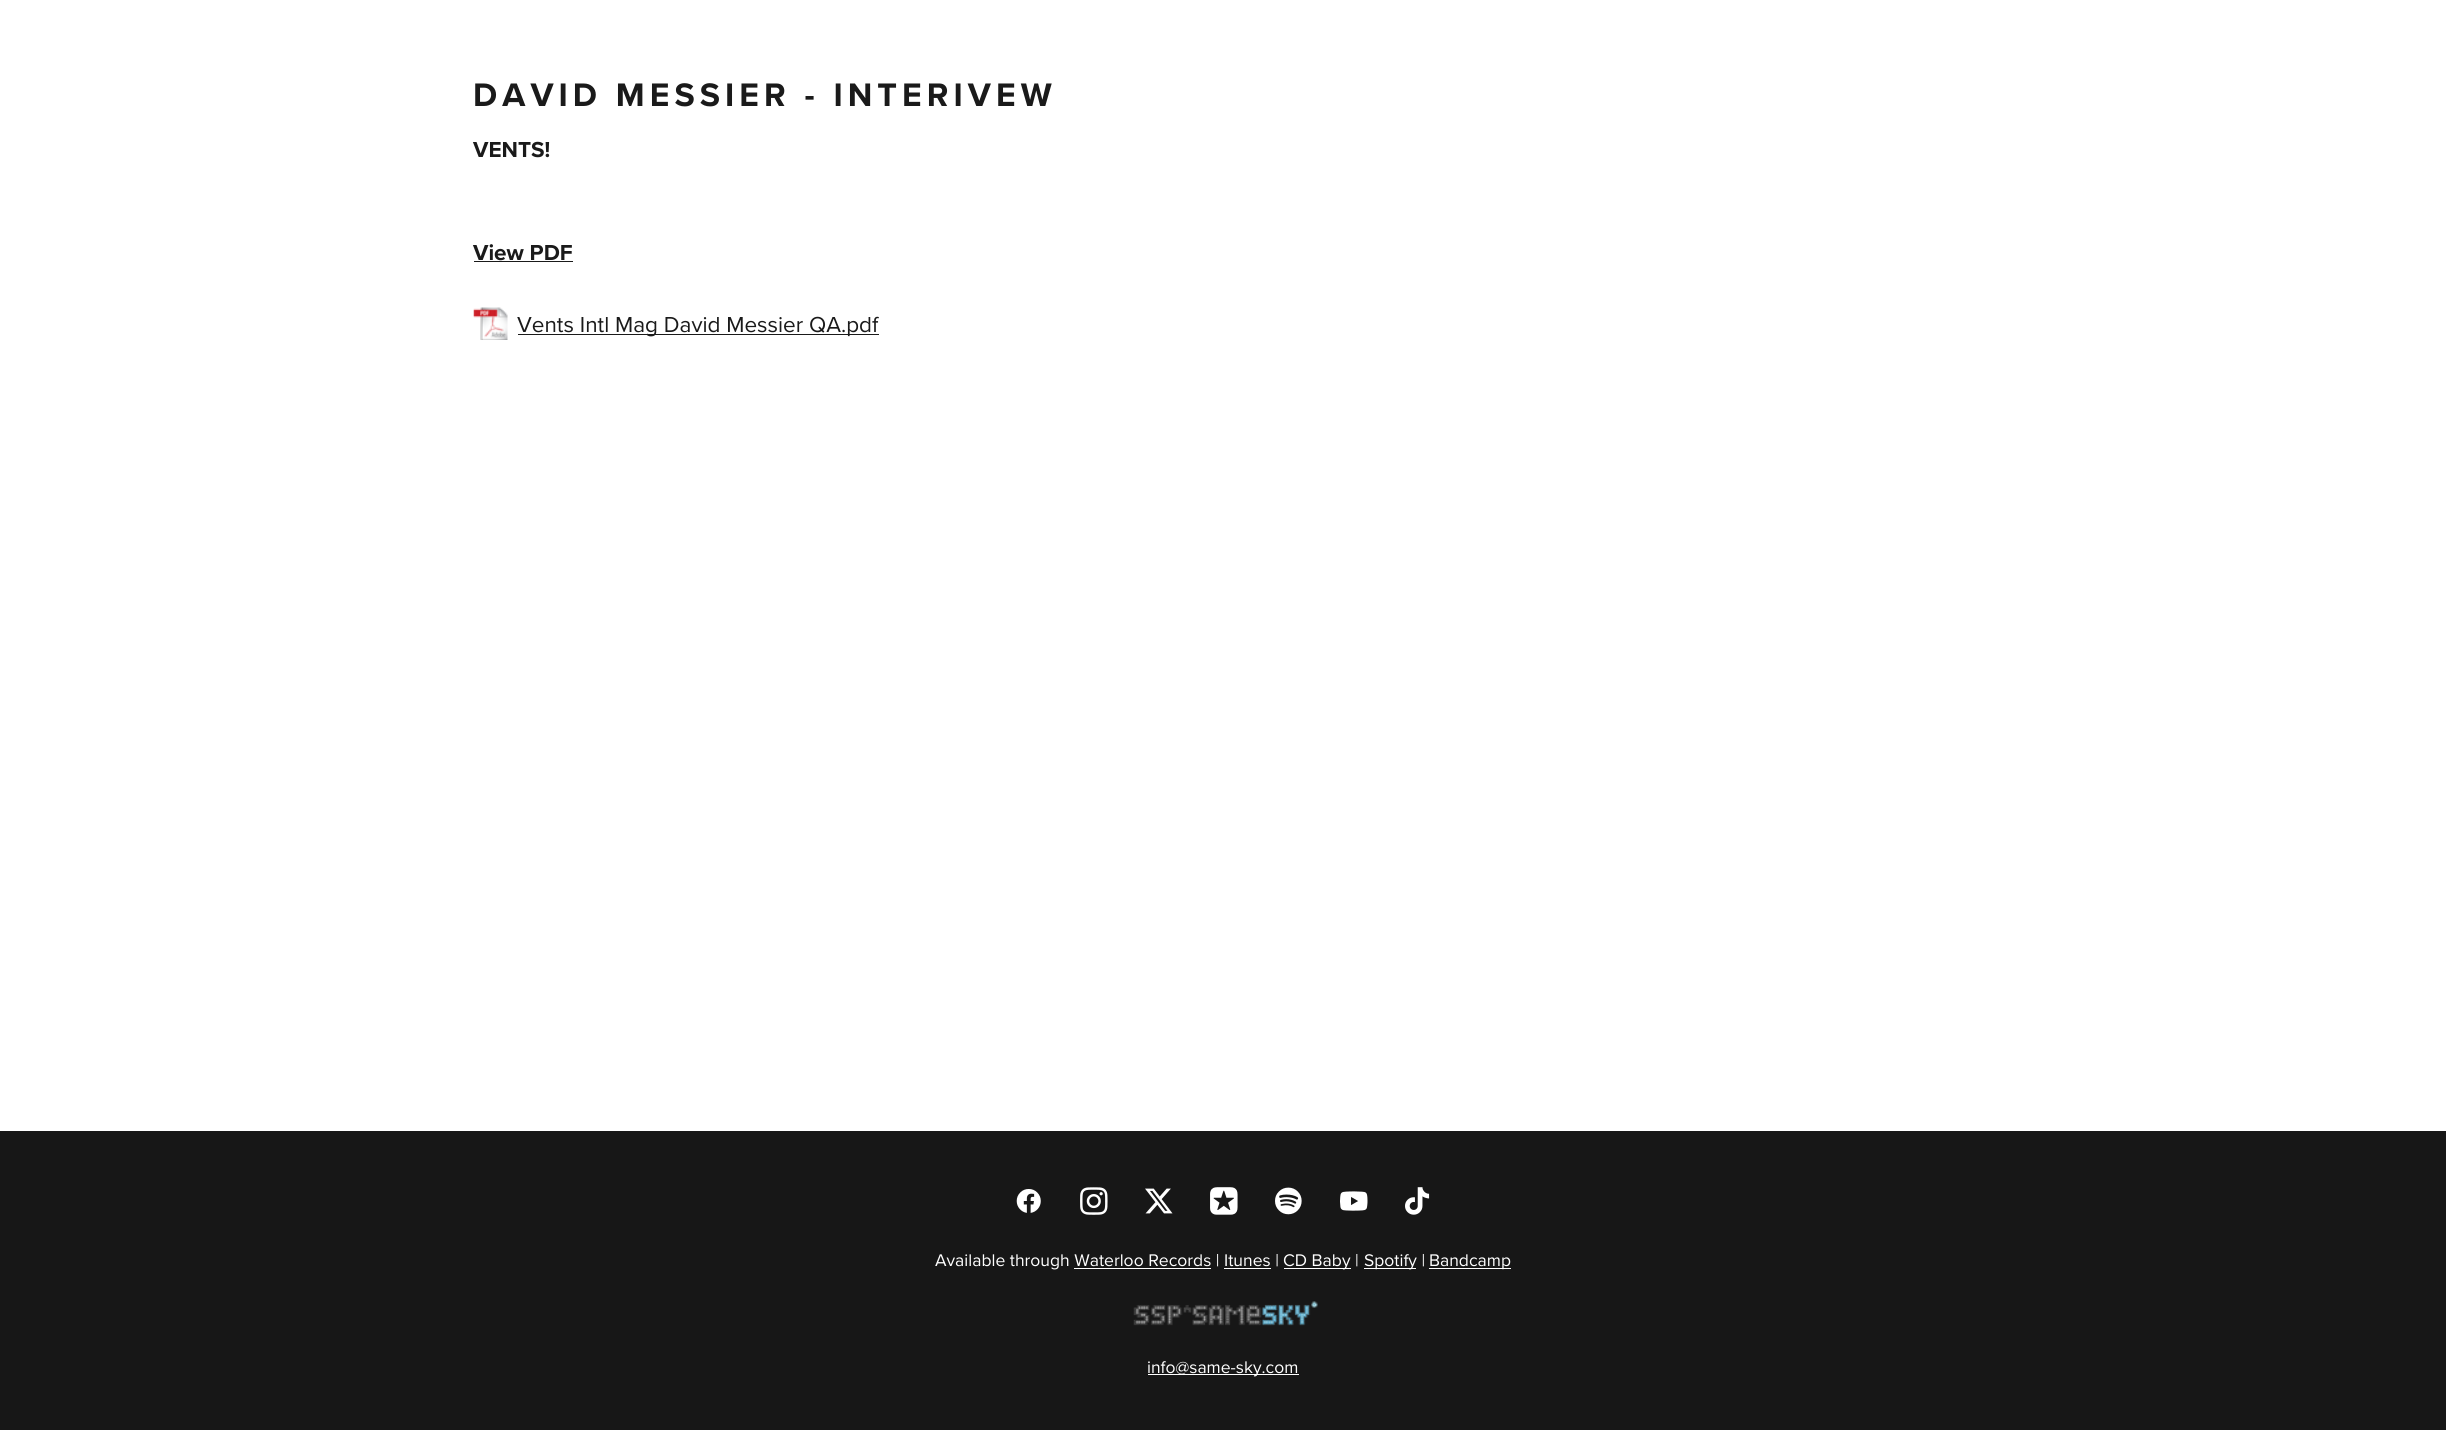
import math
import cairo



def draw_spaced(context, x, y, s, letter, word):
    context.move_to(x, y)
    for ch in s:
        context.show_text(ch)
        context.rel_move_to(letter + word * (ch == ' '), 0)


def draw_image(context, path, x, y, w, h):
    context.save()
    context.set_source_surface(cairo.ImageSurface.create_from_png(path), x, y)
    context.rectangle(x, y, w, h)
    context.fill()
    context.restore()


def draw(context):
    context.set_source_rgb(1, 1, 1)
    context.paint()
    context.set_source_rgb(26 / 255, 26 / 255, 26 / 255)
    context.rectangle(474, 261, 99, 1)
    context.fill()
    draw_image(context, "images/1.png", 473, 307, 35, 33)
    context.rectangle(518, 334, 361, 1)
    context.fill()
    context.set_source_rgb(23 / 255, 23 / 255, 23 / 255)
    context.rectangle(0, 1131, 2446, 299)
    context.fill()
    draw_image(context, "images/2.png", 1016, 1189, 25, 24)
    draw_image(context, "images/3.png", 1080, 1187, 28, 28)
    draw_image(context, "images/4.png", 1145, 1188, 28, 26)
    draw_image(context, "images/5.png", 1210, 1187, 28, 28)
    draw_image(context, "images/6.png", 1275, 1187, 27, 28)
    draw_image(context, "images/7.png", 1340, 1191, 28, 20)
    draw_image(context, "images/8.png", 1405, 1187, 25, 28)
    context.set_source_rgb(1, 1, 1)
    context.rectangle(1284, 1268, 67, 1)
    context.fill()
    context.rectangle(1364, 1268, 52, 1)
    context.fill()
    context.rectangle(1429, 1268, 82, 1)
    context.fill()
    context.rectangle(1074, 1268, 137, 1)
    context.fill()
    context.rectangle(1224, 1268, 47, 1)
    context.fill()
    draw_image(context, "images/9.png", 1133, 1301, 185, 25)
    context.rectangle(1148, 1374, 151, 1)
    context.fill()
    context.select_font_face("Proxima Nova", cairo.FontSlant.NORMAL, cairo.FontWeight.BOLD)
    context.set_font_size(33.75)
    context.set_source_rgb(26 / 255, 26 / 255, 26 / 255)
    draw_spaced(context, 473, 106, "DAVID MESSIER - INTERIVEW", 5.05, 0)
    context.set_font_size(22.5)
    context.move_to(473, 157)
    context.show_text("VENTS!")
    context.move_to(473, 260)
    context.show_text("View PDF")
    context.select_font_face("Proxima Nova")
    context.move_to(517, 332)
    context.show_text("Vents Intl Mag David Messier QA.pdf")
    context.set_font_size(17.5)
    context.set_source_rgb(1, 1, 1)
    context.move_to(935, 1266)
    context.show_text("Available through Waterloo Records | Itunes |")
    context.move_to(1283, 1266)
    context.show_text("CD Baby |")
    context.move_to(1364, 1266)
    context.show_text("Spotify |")
    context.move_to(1429, 1266)
    context.show_text("Bandcamp")
    context.move_to(1147, 1373)
    context.show_text("info@same-sky.com")


surface = cairo.ImageSurface(cairo.Format.RGB24, 2446, 1430)
context = cairo.Context(surface)
options = cairo.FontOptions()
options.set_hint_metrics(cairo.HintMetrics.OFF)
options.set_hint_style(cairo.HintStyle.NONE)
context.set_font_options(options)
context.set_miter_limit(4)
draw(context)
surface.write_to_png("out.png")
